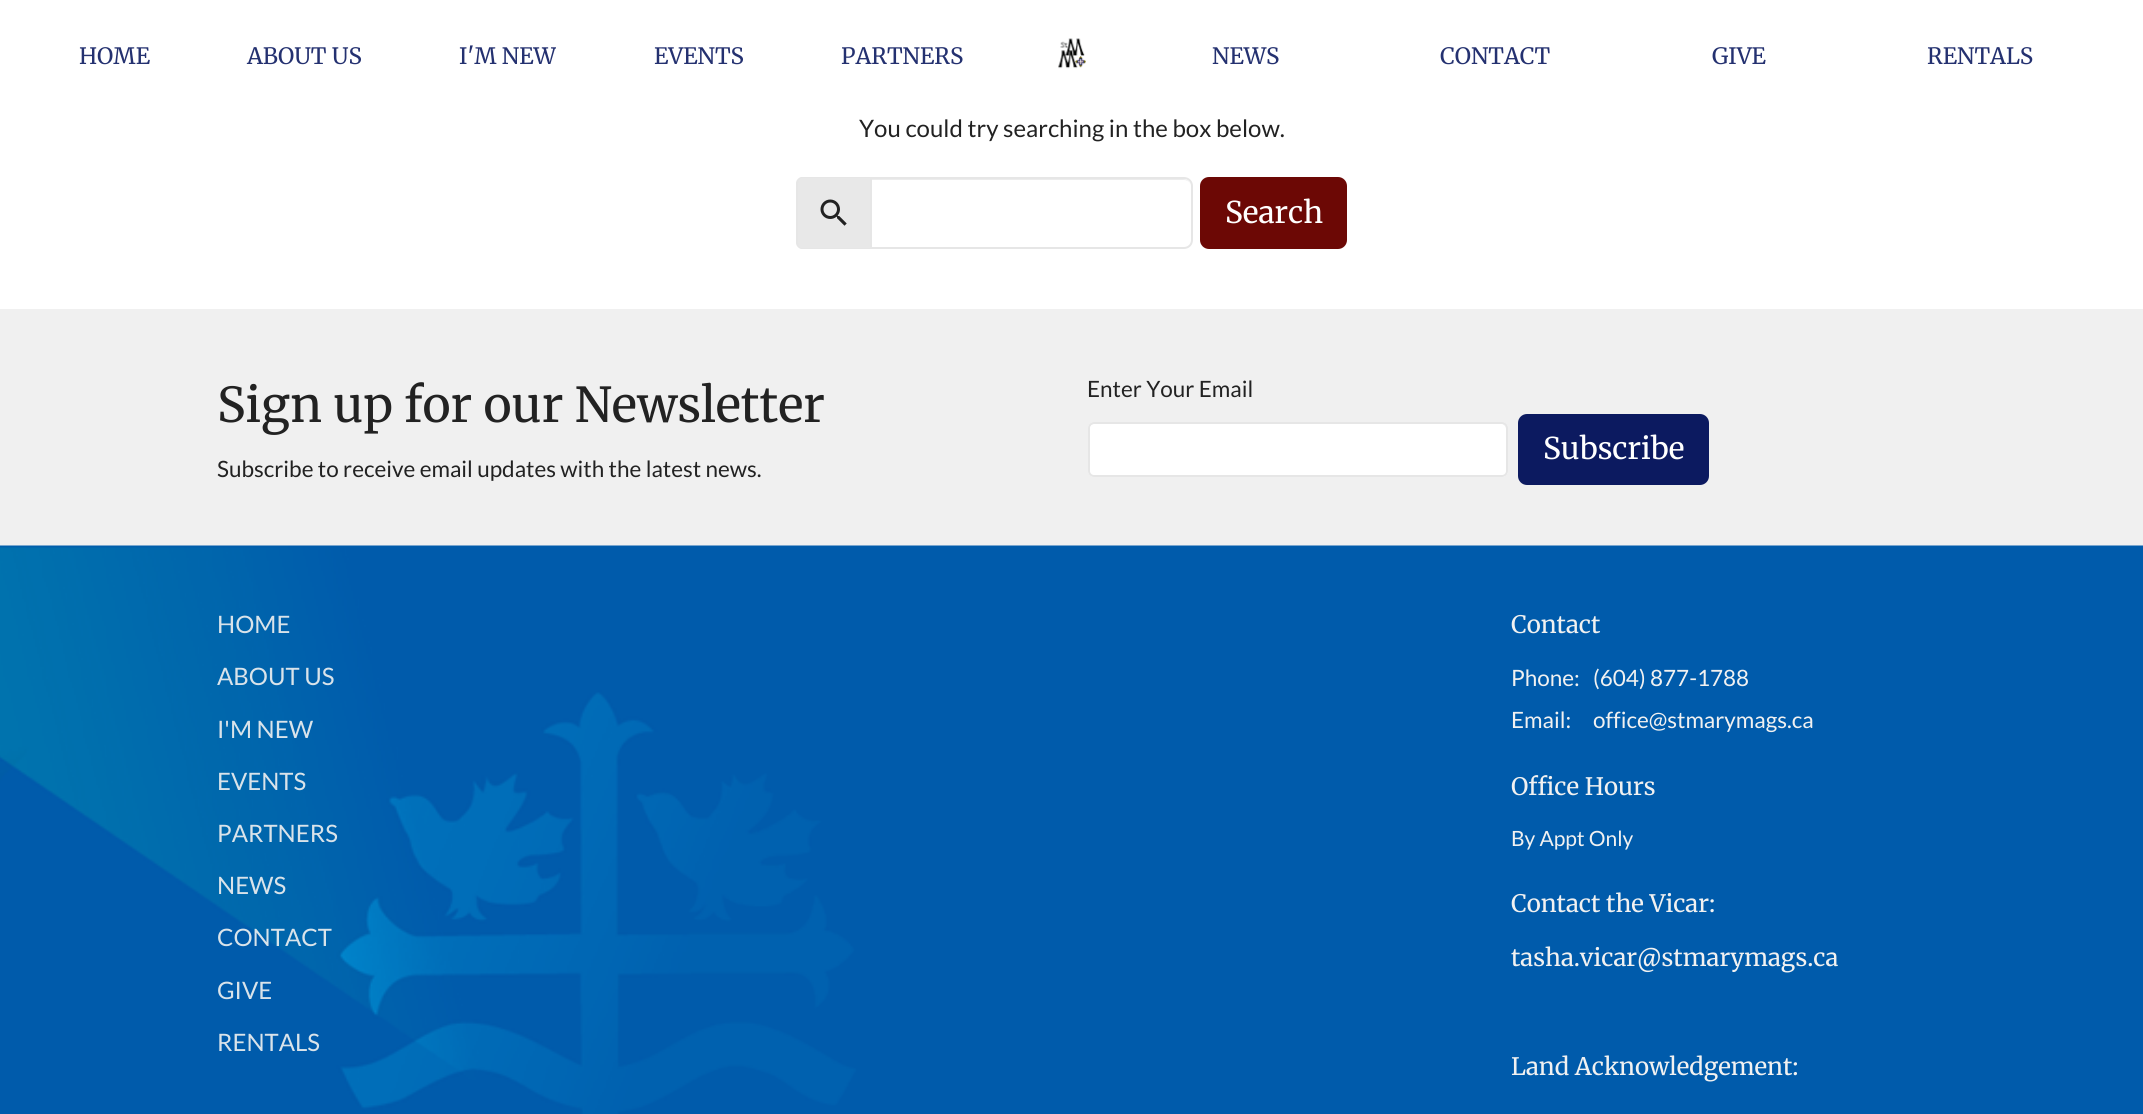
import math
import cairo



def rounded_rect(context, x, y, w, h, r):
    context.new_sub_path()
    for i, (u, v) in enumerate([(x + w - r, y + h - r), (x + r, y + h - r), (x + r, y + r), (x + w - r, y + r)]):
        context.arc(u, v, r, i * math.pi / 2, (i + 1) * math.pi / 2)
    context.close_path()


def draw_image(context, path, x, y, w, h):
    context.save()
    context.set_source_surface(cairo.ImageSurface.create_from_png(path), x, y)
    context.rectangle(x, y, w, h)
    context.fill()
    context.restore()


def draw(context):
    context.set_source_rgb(1, 1, 1)
    context.paint()
    draw_image(context, "images/1.png", 1058, 38, 28, 31)
    context.set_source_rgb(232 / 255, 232 / 255, 232 / 255)
    context.new_path()
    context.move_to(803, 177)
    context.line_to(870, 177)
    context.line_to(870, 249)
    context.line_to(803, 249)
    context.curve_to(799.5, 249, 797, 246.5, 797, 243)
    context.line_to(797, 183)
    context.curve_to(797, 179.5, 799.5, 177, 803, 177)
    context.close_path()
    context.fill()
    context.set_source_rgb(230 / 255, 230 / 255, 230 / 255)
    context.set_fill_rule(cairo.FillRule.EVEN_ODD)
    context.new_path()
    context.move_to(802, 177)
    context.line_to(870, 177)
    context.line_to(870, 249)
    context.line_to(802, 249)
    context.curve_to(799, 249, 796, 246, 796, 243)
    context.line_to(796, 183)
    context.curve_to(796, 180, 799, 177, 802, 177)
    context.close_path()
    context.move_to(802, 178)
    context.line_to(870, 178)
    context.line_to(870, 248)
    context.line_to(802, 248)
    context.curve_to(800, 248, 798, 245, 798, 243)
    context.line_to(798, 183)
    context.curve_to(798, 181, 800, 178, 802, 178)
    context.close_path()
    context.fill()
    draw_image(context, "images/2.png", 820, 199, 27, 27)
    context.set_source_rgb(236 / 255, 236 / 255, 236 / 255)
    context.set_fill_rule(cairo.FillRule.WINDING)
    context.new_path()
    context.move_to(872, 180)
    context.line_to(1184, 180)
    context.curve_to(1188, 180, 1191, 183, 1191, 188)
    context.curve_to(1191, 183, 1188, 179, 1183, 179)
    context.line_to(872, 179)
    context.close_path()
    context.fill()
    context.new_path()
    context.move_to(871, 178)
    context.line_to(1184, 178)
    context.curve_to(1188.5, 178, 1192, 181.5, 1192, 186)
    context.line_to(1192, 240)
    context.curve_to(1192, 244.5, 1188.5, 248, 1184, 248)
    context.line_to(871, 248)
    context.close_path()
    context.set_source_rgb(230 / 255, 230 / 255, 230 / 255)
    context.stroke()
    context.set_source_rgb(108 / 255, 8 / 255, 5 / 255)
    rounded_rect(context, 1200, 177, 147, 72, 9)
    context.fill()
    context.set_source_rgb(240 / 255, 240 / 255, 240 / 255)
    context.rectangle(0, 309, 2143, 237)
    context.fill()
    context.set_source_rgb(1, 1, 1)
    rounded_rect(context, 1088, 422, 420, 55, 6)
    context.fill()
    context.set_source_rgb(236 / 255, 236 / 255, 236 / 255)
    context.new_path()
    context.move_to(1094, 424)
    context.line_to(1502, 424)
    context.curve_to(1504, 424, 1506, 427, 1506, 429)
    context.line_to(1506, 428)
    context.curve_to(1506, 425, 1504, 423, 1501, 423)
    context.line_to(1094, 423)
    context.curve_to(1091, 423, 1089, 425, 1089, 428)
    context.line_to(1089, 429)
    context.curve_to(1089, 427, 1091, 424, 1094, 424)
    context.close_path()
    context.fill()
    rounded_rect(context, 1089, 423, 418, 53, 5)
    context.set_source_rgb(230 / 255, 230 / 255, 230 / 255)
    context.stroke()
    context.set_source_rgb(12 / 255, 26 / 255, 96 / 255)
    rounded_rect(context, 1518, 414, 191, 71, 9)
    context.fill()
    draw_image(context, "images/3.png", 0, 545, 2143, 569)
    context.select_font_face("Merriweather")
    context.set_font_size(22.5)
    context.set_source_rgb(36 / 255, 49 / 255, 112 / 255)
    context.move_to(79, 64)
    context.show_text("HOME")
    context.move_to(247, 64)
    context.show_text("ABOUT US")
    context.move_to(459, 64)
    context.show_text("I'M NEW")
    context.move_to(654, 64)
    context.show_text("EVENTS")
    context.move_to(841, 64)
    context.show_text("PARTNERS")
    context.move_to(1212, 64)
    context.show_text("NEWS")
    context.move_to(1440, 64)
    context.show_text("CONTACT")
    context.move_to(1712, 64)
    context.show_text("GIVE")
    context.move_to(1927, 64)
    context.show_text("RENTALS")
    context.select_font_face("Lato")
    context.set_font_size(24)
    context.set_source_rgb(34 / 255, 34 / 255, 34 / 255)
    context.move_to(859, 137)
    context.show_text("You could try searching in the box below.")
    context.select_font_face("Merriweather")
    context.set_font_size(30)
    context.set_source_rgb(1, 1, 1)
    context.move_to(1225, 223)
    context.show_text("Search")
    context.set_font_size(48)
    context.set_source_rgb(34 / 255, 34 / 255, 34 / 255)
    context.move_to(217, 422)
    context.show_text("Sign up for our Newsletter")
    context.select_font_face("Lato")
    context.set_font_size(22.5)
    context.move_to(217, 477)
    context.show_text("Subscribe to receive email updates with the latest news.")
    context.move_to(1087, 397)
    context.show_text("Enter Your Email")
    context.select_font_face("Merriweather")
    context.set_font_size(30)
    context.set_source_rgb(1, 1, 1)
    context.move_to(1543, 459)
    context.show_text("Subscribe")
    context.select_font_face("Lato")
    context.set_font_size(24)
    context.set_source_rgb(217 / 255, 227 / 255, 234 / 255)
    context.move_to(217, 633)
    context.show_text("HOME")
    context.move_to(217, 685)
    context.show_text("ABOUT US")
    context.move_to(217, 738)
    context.show_text("I'M NEW")
    context.move_to(217, 790)
    context.show_text("EVENTS")
    context.move_to(217, 842)
    context.show_text("PARTNERS")
    context.move_to(217, 894)
    context.show_text("NEWS")
    context.move_to(217, 946)
    context.show_text("CONTACT")
    context.move_to(217, 999)
    context.show_text("GIVE")
    context.move_to(217, 1051)
    context.show_text("RENTALS")
    context.select_font_face("Merriweather")
    context.set_source_rgb(241 / 255, 241 / 255, 241 / 255)
    context.move_to(1511, 633)
    context.show_text("Contact")
    context.select_font_face("Lato")
    context.set_font_size(22.5)
    context.move_to(1511, 686)
    context.show_text("Phone:")
    context.move_to(1593, 686)
    context.show_text("(604) 877-1788")
    context.move_to(1511, 728)
    context.show_text("Email:")
    context.move_to(1593, 728)
    context.show_text("office@stmarymags.ca")
    context.select_font_face("Merriweather")
    context.set_font_size(24)
    context.move_to(1511, 795)
    context.show_text("Office Hours")
    context.select_font_face("Lato")
    context.set_font_size(21)
    context.move_to(1511, 846)
    context.show_text("By Appt Only")
    context.select_font_face("Merriweather")
    context.set_font_size(24)
    context.move_to(1511, 912)
    context.show_text("Contact the Vicar:")
    context.move_to(1511, 966)
    context.show_text("tasha.vicar@stmarymags.ca")
    context.move_to(1511, 1075)
    context.show_text("Land Acknowledgement:")


surface = cairo.ImageSurface(cairo.Format.RGB24, 2143, 1114)
context = cairo.Context(surface)
options = cairo.FontOptions()
options.set_hint_metrics(cairo.HintMetrics.OFF)
options.set_hint_style(cairo.HintStyle.NONE)
context.set_font_options(options)
context.set_miter_limit(4)
draw(context)
surface.write_to_png("out.png")
